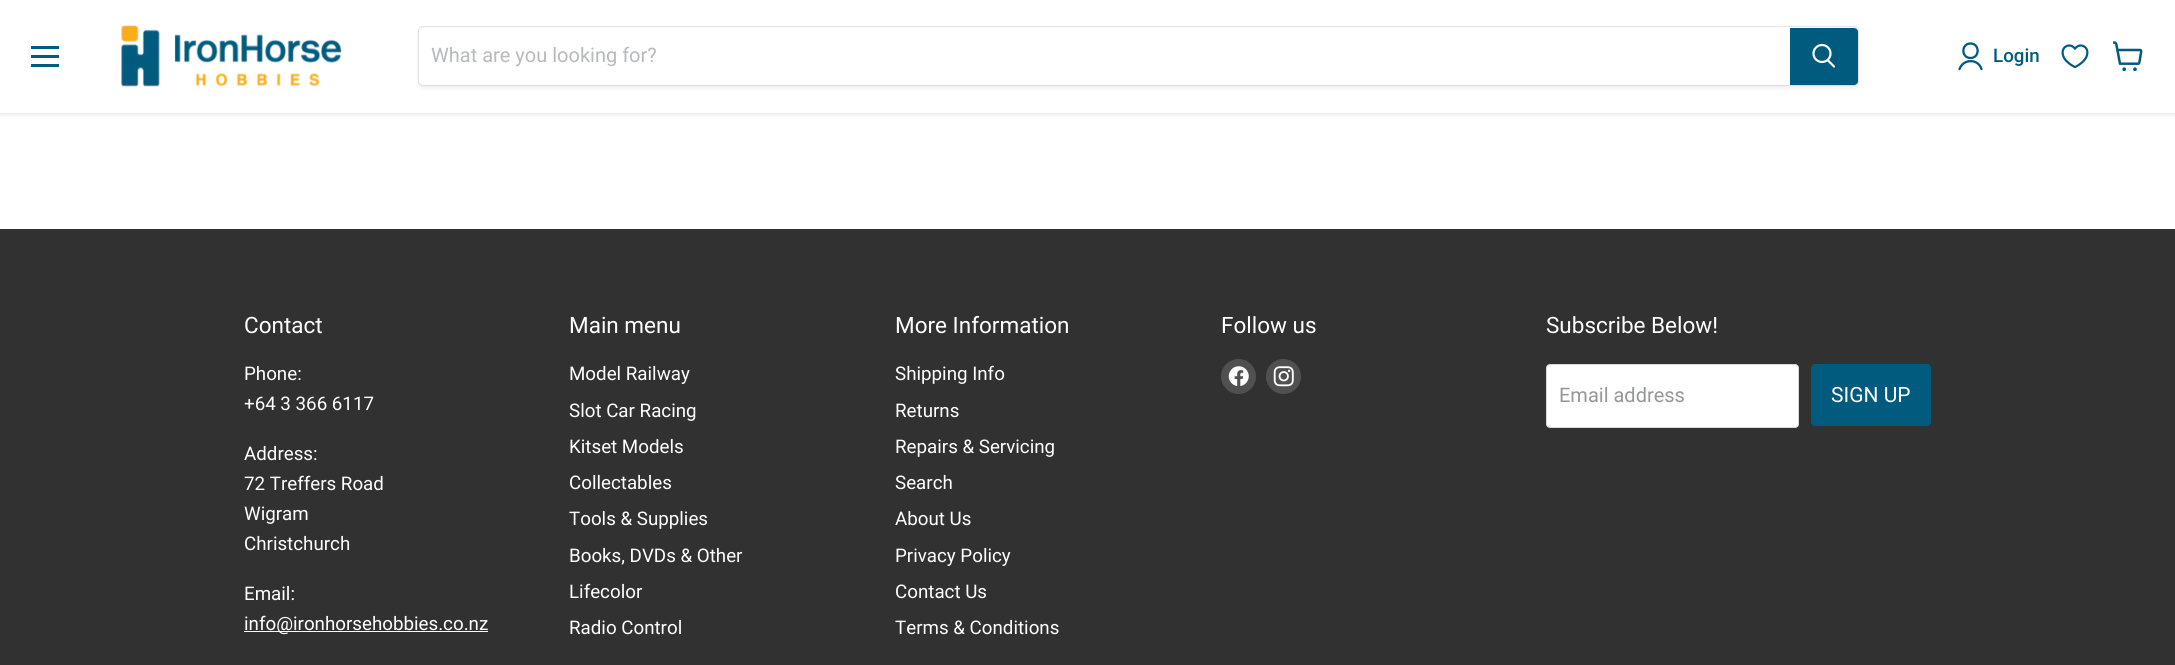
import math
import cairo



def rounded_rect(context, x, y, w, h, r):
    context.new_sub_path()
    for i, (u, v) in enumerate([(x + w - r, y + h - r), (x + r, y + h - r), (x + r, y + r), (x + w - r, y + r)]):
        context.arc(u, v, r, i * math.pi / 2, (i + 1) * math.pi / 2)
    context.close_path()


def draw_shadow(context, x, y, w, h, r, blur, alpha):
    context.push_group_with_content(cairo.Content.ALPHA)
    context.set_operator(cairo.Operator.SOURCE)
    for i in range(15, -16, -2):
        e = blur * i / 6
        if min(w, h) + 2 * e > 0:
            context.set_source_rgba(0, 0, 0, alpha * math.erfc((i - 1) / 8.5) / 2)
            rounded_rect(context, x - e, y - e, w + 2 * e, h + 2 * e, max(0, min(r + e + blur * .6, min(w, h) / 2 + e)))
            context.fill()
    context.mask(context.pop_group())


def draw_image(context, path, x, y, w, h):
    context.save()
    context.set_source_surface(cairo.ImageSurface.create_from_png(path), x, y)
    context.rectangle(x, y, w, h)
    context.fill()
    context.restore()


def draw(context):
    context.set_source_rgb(1, 1, 1)
    context.paint()
    context.set_source_rgb(128 / 255, 128 / 255, 128 / 255)
    draw_shadow(context, 0, 1, 2175, 113, 0, 2.5, 0.25)
    context.set_source_rgb(1, 1, 1)
    context.rectangle(0, 0, 2175, 113)
    context.fill()
    context.set_source_rgb(0, 91 / 255, 127 / 255)
    context.rectangle(31, 46, 28, 3)
    context.fill()
    context.rectangle(31, 55, 28, 3)
    context.fill()
    context.rectangle(31, 64, 28, 3)
    context.fill()
    draw_image(context, "images/1.png", 121, 25, 221, 62)
    context.set_source_rgb(128 / 255, 128 / 255, 128 / 255)
    draw_shadow(context, 418, 29, 1441, 60, 5, 2, 0.11)
    rounded_rect(context, 418.5, 26.5, 1440, 59, 4.5)
    context.set_source_rgba(128 / 255, 128 / 255, 128 / 255, 0.2)
    context.set_line_width(1)
    context.stroke()
    context.set_source_rgb(1, 1, 1)
    context.new_path()
    context.move_to(423, 28)
    context.line_to(1790, 28)
    context.line_to(1790, 85)
    context.line_to(423, 85)
    context.curve_to(421, 85, 419, 83, 419, 81)
    context.line_to(419, 32)
    context.curve_to(419, 30, 421, 28, 423, 28)
    context.close_path()
    context.fill()
    context.set_source_rgb(0, 91 / 255, 127 / 255)
    context.new_path()
    context.move_to(1790.5, 28.5)
    context.line_to(1854, 28.5)
    context.curve_to(1856, 28.5, 1857.5, 30, 1857.5, 32)
    context.line_to(1857.5, 81)
    context.curve_to(1857.5, 83, 1856, 84.5, 1854, 84.5)
    context.line_to(1790.5, 84.5)
    context.close_path()
    context.fill_preserve()
    context.stroke()
    context.new_path()
    context.move_to(1834, 66.5)
    context.line_to(1828, 60.5)
    context.set_source_rgb(1, 1, 1)
    context.set_line_width(2.2)
    context.set_line_cap(cairo.LineCap.ROUND)
    context.stroke()
    context.arc(1822, 53.5, 8.5, 0, 2 * math.pi)
    context.set_line_cap(cairo.LineCap.BUTT)
    context.stroke()
    context.new_path()
    context.move_to(1970.5, 58)
    context.curve_to(1980, 58, 1980, 43.5, 1970.5, 43.5)
    context.curve_to(1961, 43.5, 1961, 58, 1970.5, 58)
    context.close_path()
    context.move_to(1981.5, 69)
    context.curve_to(1978, 58.5, 1963.5, 58.5, 1959.5, 69)
    context.set_source_rgb(0, 91 / 255, 127 / 255)
    context.set_line_width(2.3)
    context.set_line_cap(cairo.LineCap.ROUND)
    context.set_line_join(cairo.LineJoin.ROUND)
    context.stroke()
    draw_image(context, "images/2.png", 2061, 44, 28, 25)
    draw_image(context, "images/3.png", 2113, 41, 30, 30)
    context.set_source_rgb(49 / 255, 49 / 255, 49 / 255)
    context.rectangle(0, 229, 2175, 436)
    context.fill()
    context.set_source_rgb(1, 1, 1)
    context.rectangle(244, 631, 244, 1)
    context.fill()
    context.set_source_rgb(80 / 255, 80 / 255, 80 / 255)
    context.arc(1238.5, 376.5, 17.5, 0, 2 * math.pi)
    context.fill()
    draw_image(context, "images/4.png", 1228, 366, 21, 20)
    context.arc(1283.5, 376.5, 17.5, 0, 2 * math.pi)
    context.fill()
    draw_image(context, "images/5.png", 1273, 366, 21, 21)
    context.set_source_rgb(1, 1, 1)
    rounded_rect(context, 1546.5, 364.5, 252, 63, 3.5)
    context.fill_preserve()
    context.set_source_rgb(216 / 255, 216 / 255, 216 / 255)
    context.set_line_width(1)
    context.set_line_cap(cairo.LineCap.BUTT)
    context.set_line_join(cairo.LineJoin.MITER)
    context.stroke()
    context.set_source_rgb(0, 91 / 255, 127 / 255)
    rounded_rect(context, 1811.5, 364.5, 119, 61, 3.5)
    context.fill_preserve()
    context.stroke()
    context.select_font_face("Roboto")
    context.set_font_size(20)
    context.set_source_rgb(183 / 255, 185 / 255, 187 / 255)
    context.move_to(431, 62)
    context.show_text("What are you looking for?")
    context.select_font_face("Roboto Medium")
    context.set_font_size(18.75)
    context.set_source_rgb(0, 91 / 255, 127 / 255)
    context.move_to(1993, 62)
    context.show_text("Login")
    context.select_font_face("Roboto")
    context.set_font_size(22.5)
    context.set_source_rgb(1, 1, 1)
    context.move_to(244, 333)
    context.show_text("Contact")
    context.set_font_size(18.75)
    context.move_to(244, 380)
    context.show_text("Phone:")
    context.move_to(244, 410)
    context.show_text("+64 3 366 6117")
    context.move_to(244, 460)
    context.show_text("Address:")
    context.move_to(244, 490)
    context.show_text("72 Treffers Road")
    context.move_to(244, 520)
    context.show_text("Wigram")
    context.move_to(244, 550)
    context.show_text("Christchurch")
    context.move_to(244, 600)
    context.show_text("Email:")
    context.move_to(244, 630)
    context.show_text("info@ironhorsehobbies.co.nz")
    context.set_font_size(22.5)
    context.move_to(569, 333)
    context.show_text("Main menu")
    context.set_font_size(18.75)
    context.move_to(569, 380)
    context.show_text("Model Railway")
    context.move_to(569, 417)
    context.show_text("Slot Car Racing")
    context.move_to(569, 453)
    context.show_text("Kitset Models")
    context.move_to(569, 489)
    context.show_text("Collectables")
    context.move_to(569, 525)
    context.show_text("Tools & Supplies")
    context.move_to(569, 562)
    context.show_text("Books, DVDs & Other")
    context.move_to(569, 598)
    context.show_text("Lifecolor")
    context.move_to(569, 634)
    context.show_text("Radio Control")
    context.set_font_size(22.5)
    context.move_to(895, 333)
    context.show_text("More Information")
    context.set_font_size(18.75)
    context.move_to(895, 380)
    context.show_text("Shipping Info")
    context.move_to(895, 417)
    context.show_text("Returns")
    context.move_to(895, 453)
    context.show_text("Repairs & Servicing")
    context.move_to(895, 489)
    context.show_text("Search")
    context.move_to(895, 525)
    context.show_text("About Us")
    context.move_to(895, 562)
    context.show_text("Privacy Policy")
    context.move_to(895, 598)
    context.show_text("Contact Us")
    context.move_to(895, 634)
    context.show_text("Terms & Conditions")
    context.set_font_size(22.5)
    context.move_to(1221, 333)
    context.show_text("Follow us")
    context.move_to(1546, 333)
    context.show_text("Subscribe Below!")
    context.set_font_size(20)
    context.set_source_rgb(148 / 255, 151 / 255, 152 / 255)
    context.move_to(1559, 402)
    context.show_text("Email address")
    context.set_font_size(21)
    context.set_source_rgb(1, 1, 1)
    context.move_to(1831, 402)
    context.show_text("SIGN UP")


surface = cairo.ImageSurface(cairo.Format.RGB24, 2175, 665)
context = cairo.Context(surface)
options = cairo.FontOptions()
options.set_hint_metrics(cairo.HintMetrics.OFF)
options.set_hint_style(cairo.HintStyle.NONE)
context.set_font_options(options)
context.set_miter_limit(4)
draw(context)
surface.write_to_png("out.png")
